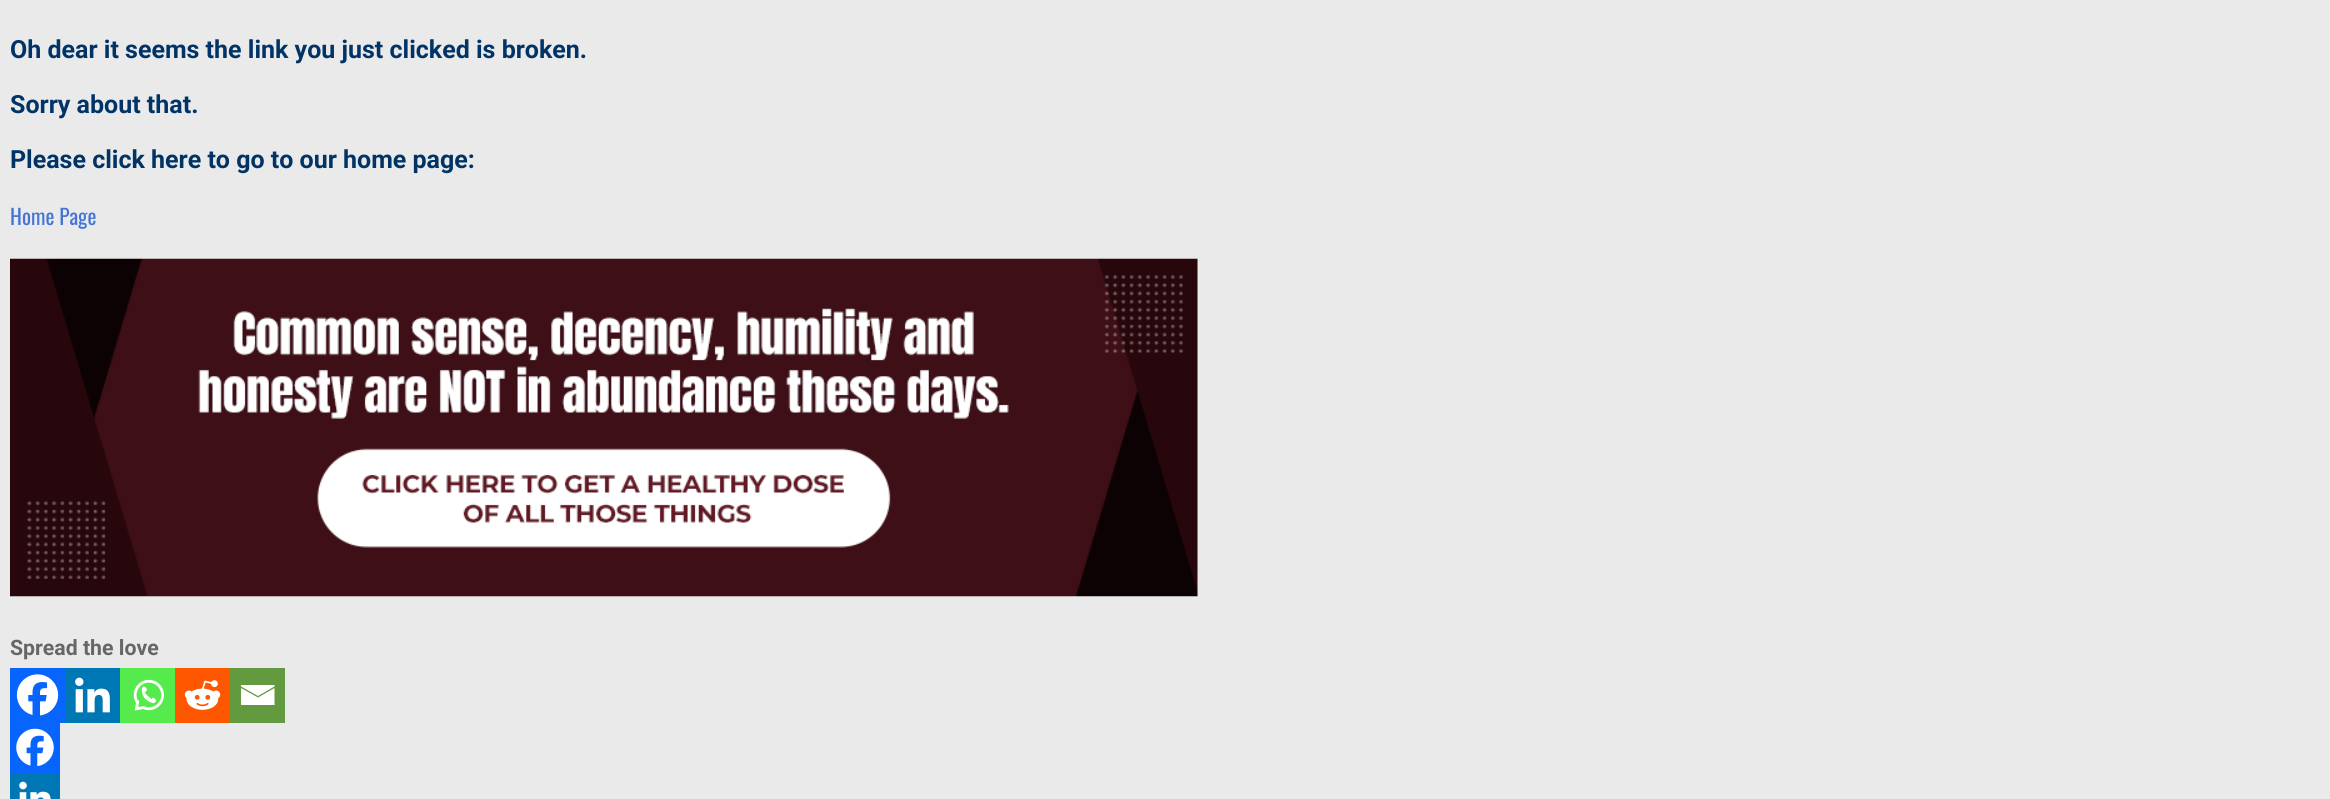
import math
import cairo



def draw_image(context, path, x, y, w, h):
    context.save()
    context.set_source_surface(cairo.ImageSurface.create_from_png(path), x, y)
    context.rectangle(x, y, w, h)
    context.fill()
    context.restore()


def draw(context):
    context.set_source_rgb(234 / 255, 234 / 255, 234 / 255)
    context.paint()
    draw_image(context, "images/1.png", 10, 258, 1188, 339)
    context.set_source_rgb(7 / 255, 101 / 255, 254 / 255)
    context.rectangle(10, 668, 55, 55)
    context.fill()
    draw_image(context, "images/2.png", 16, 674, 43, 42)
    context.set_source_rgb(0, 119 / 255, 181 / 255)
    context.rectangle(65, 668, 55, 55)
    context.fill()
    draw_image(context, "images/3.png", 75, 677, 35, 36)
    context.set_source_rgb(85 / 255, 235 / 255, 76 / 255)
    context.rectangle(120, 668, 55, 55)
    context.fill()
    draw_image(context, "images/4.png", 133, 679, 31, 32)
    context.set_source_rgb(1, 87 / 255, 0)
    context.rectangle(175, 668, 55, 55)
    context.fill()
    draw_image(context, "images/5.png", 184, 680, 37, 30)
    context.set_source_rgb(100 / 255, 154 / 255, 63 / 255)
    context.rectangle(230, 668, 55, 55)
    context.fill()
    context.set_source_rgb(1, 1, 1)
    context.new_path()
    context.move_to(239.5, 685)
    context.line_to(274.5, 685)
    context.line_to(274.5, 686.5)
    context.line_to(258, 696)
    context.line_to(241, 686.5)
    context.line_to(241, 685)
    context.move_to(241, 688)
    context.line_to(258, 697.5)
    context.line_to(274.5, 688)
    context.line_to(274.5, 705)
    context.line_to(241, 705)
    context.line_to(241, 688)
    context.fill()
    context.set_source_rgb(7 / 255, 101 / 255, 254 / 255)
    context.rectangle(10, 723, 50, 50)
    context.fill()
    draw_image(context, "images/6.png", 16, 728, 38, 39)
    context.set_source_rgb(0, 119 / 255, 181 / 255)
    context.rectangle(10, 773, 50, 26)
    context.fill()
    draw_image(context, "images/7.png", 19, 781, 32, 18)
    context.select_font_face("Roboto", cairo.FontSlant.NORMAL, cairo.FontWeight.BOLD)
    context.set_font_size(25)
    context.set_source_rgb(0, 51 / 255, 102 / 255)
    context.move_to(10, 58)
    context.show_text("Oh dear it seems the link you just clicked is broken.")
    context.move_to(10, 113)
    context.show_text("Sorry about that.")
    context.move_to(10, 168)
    context.show_text("Please click here to go to our home page:")
    context.select_font_face("Oswald")
    context.set_font_size(21.25)
    context.set_source_rgb(69 / 255, 117 / 255, 212 / 255)
    context.move_to(10, 225)
    context.show_text("Home Page")
    context.select_font_face("Roboto", cairo.FontSlant.NORMAL, cairo.FontWeight.BOLD)
    context.set_source_rgb(102 / 255, 102 / 255, 102 / 255)
    context.move_to(10, 655)
    context.show_text("Spread the love")


surface = cairo.ImageSurface(cairo.Format.RGB24, 2330, 799)
context = cairo.Context(surface)
options = cairo.FontOptions()
options.set_hint_metrics(cairo.HintMetrics.OFF)
options.set_hint_style(cairo.HintStyle.NONE)
context.set_font_options(options)
context.set_miter_limit(4)
draw(context)
surface.write_to_png("out.png")
